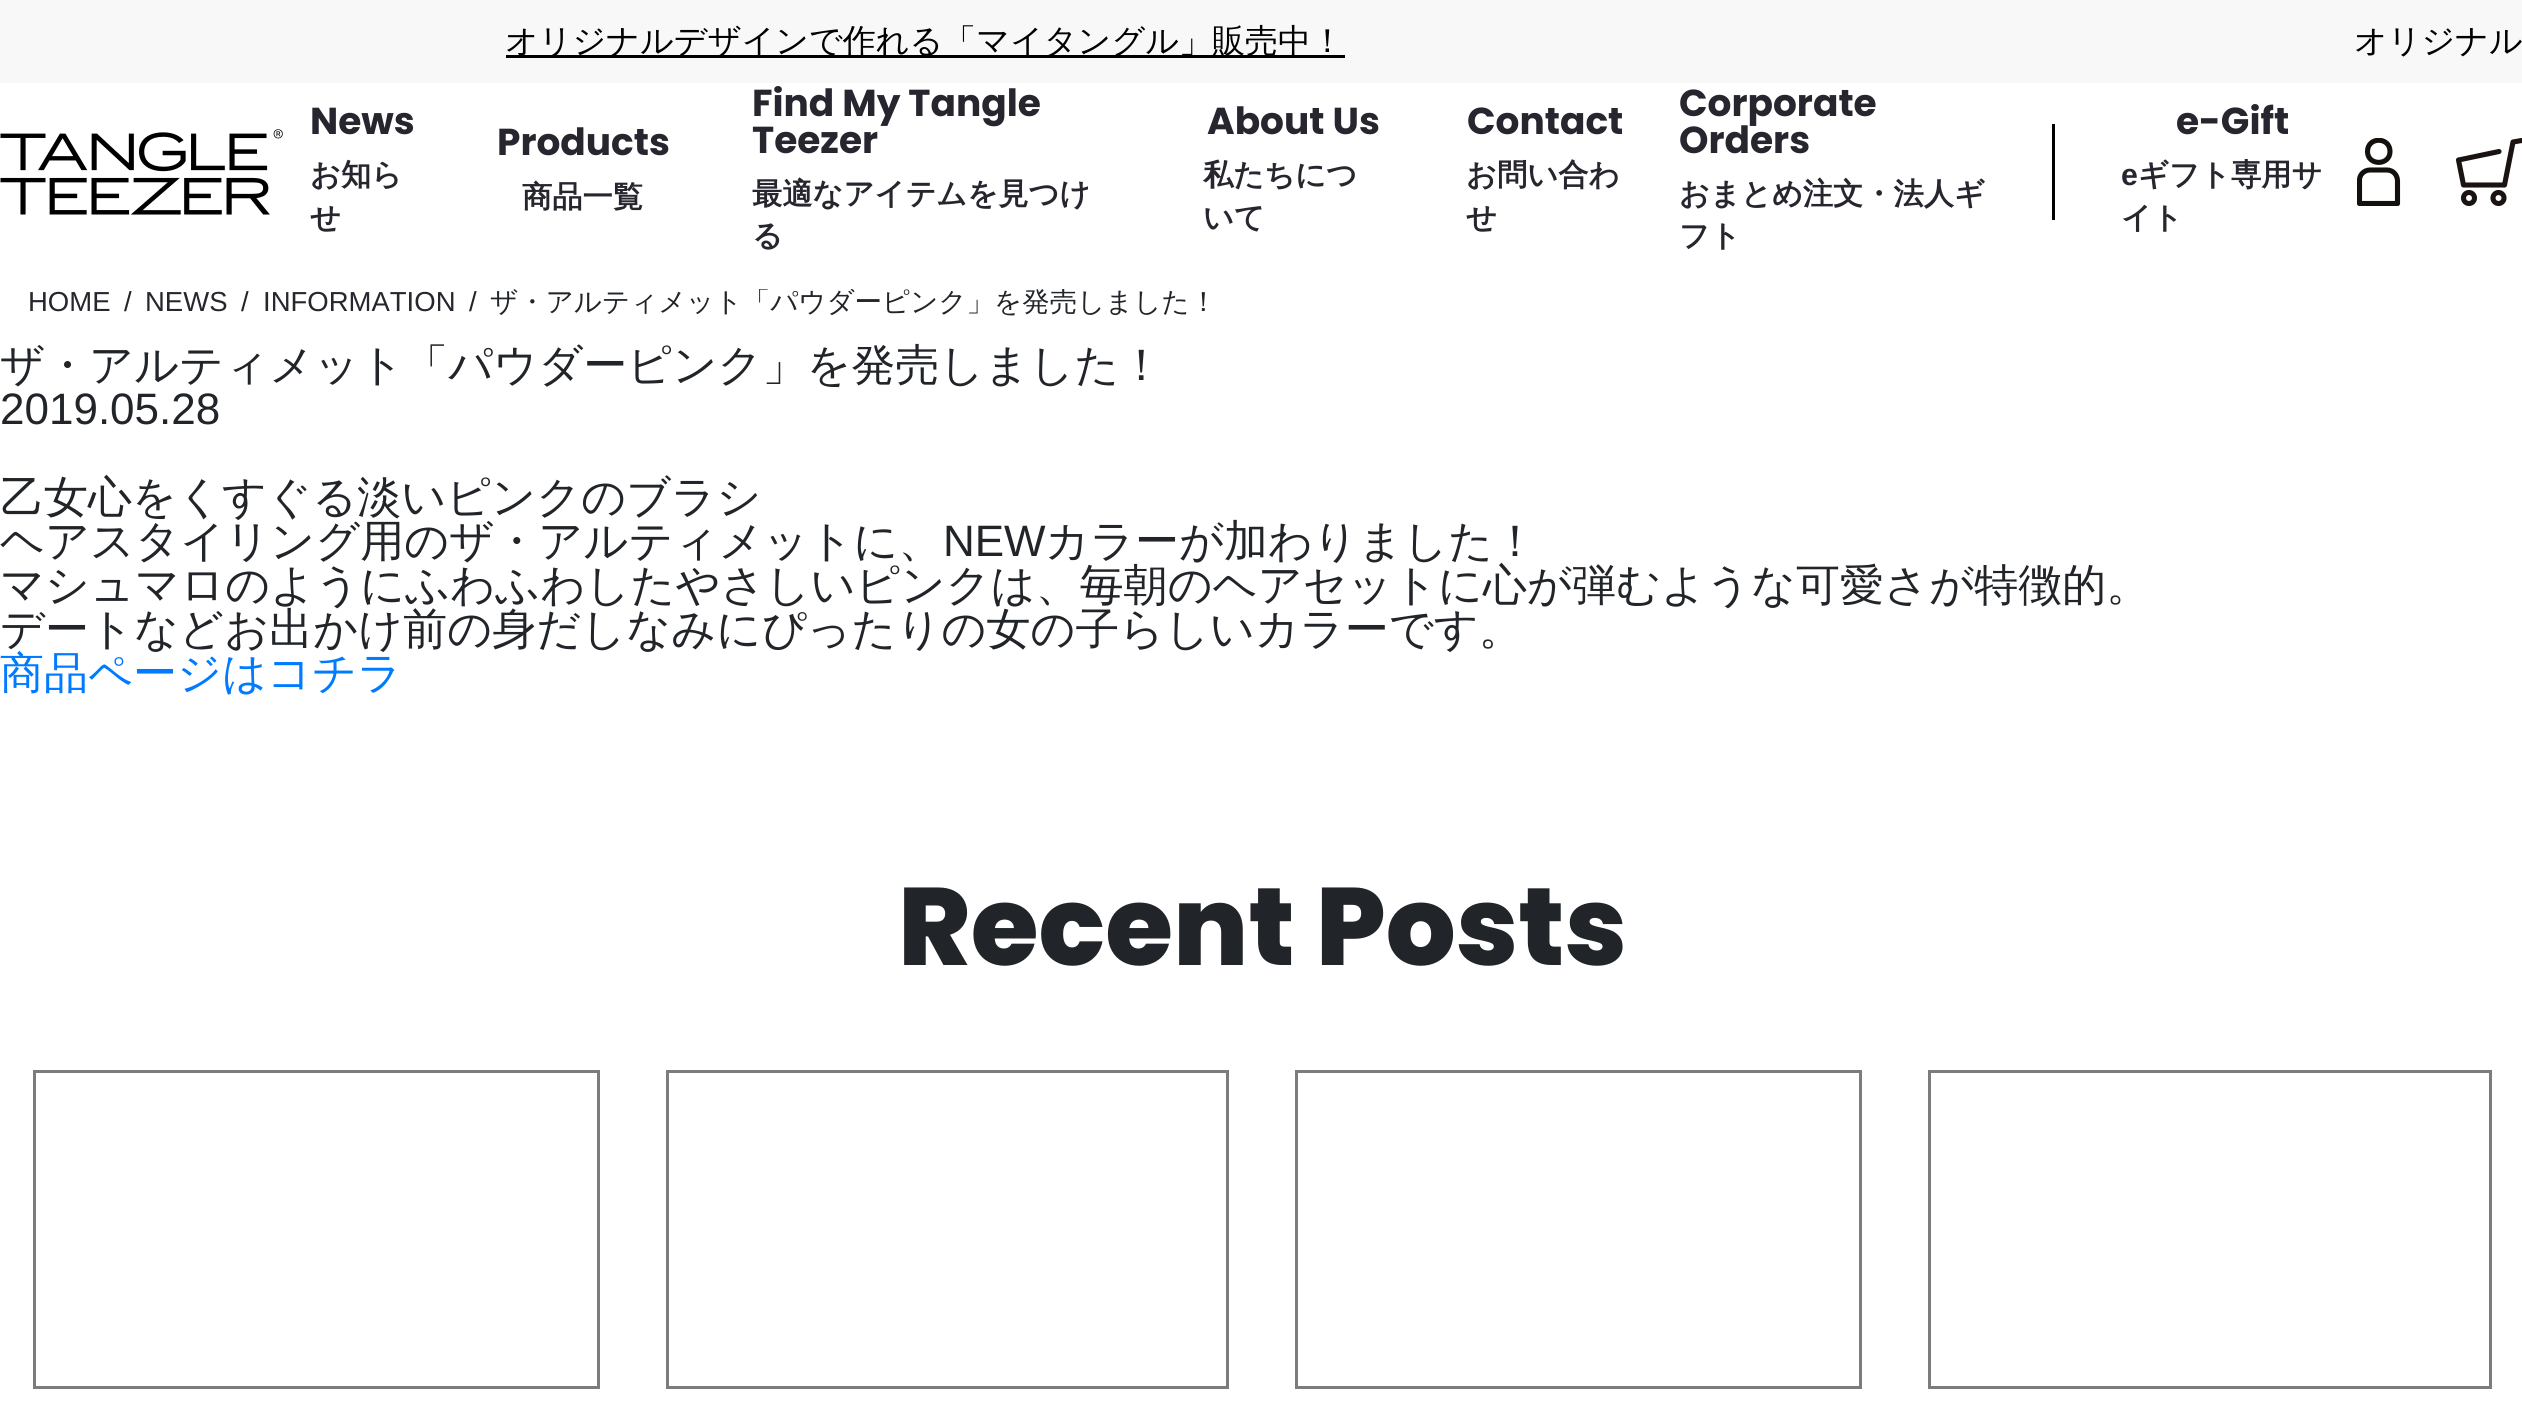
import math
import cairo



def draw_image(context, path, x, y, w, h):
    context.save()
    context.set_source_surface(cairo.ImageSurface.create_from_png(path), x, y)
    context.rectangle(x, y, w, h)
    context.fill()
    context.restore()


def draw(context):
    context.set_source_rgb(1, 1, 1)
    context.paint()
    context.set_source_rgb(248 / 255, 248 / 255, 248 / 255)
    context.rectangle(0, 0, 2522, 83)
    context.fill()
    context.set_source_rgb(0, 0, 0)
    context.rectangle(506, 55, 839, 3)
    context.fill()
    draw_image(context, "images/1.png", 0, 129, 283, 86)
    context.rectangle(2052, 124, 3, 96)
    context.fill()
    context.save()
    context.rectangle(2357, 138, 44, 68)
    context.clip()
    context.new_path()
    context.move_to(2359.5, 203.5)
    context.line_to(2359.5, 181)
    context.curve_to(2359, 175, 2364, 170, 2370, 170)
    context.line_to(2387, 170)
    context.curve_to(2393, 170, 2397.5, 175, 2397.5, 181)
    context.line_to(2397.5, 203.5)
    context.close_path()
    context.move_to(2367.5, 151.5)
    context.curve_to(2367.5, 136.5, 2390, 136.5, 2390, 151.5)
    context.curve_to(2390, 166, 2367.5, 166, 2367.5, 151.5)
    context.close_path()
    context.set_source_rgb(20 / 255, 16 / 255, 14 / 255)
    context.set_line_width(5.1)
    context.set_line_cap(cairo.LineCap.ROUND)
    context.set_line_join(cairo.LineJoin.ROUND)
    context.stroke()
    context.restore()
    context.arc(2469, 198, 5.5, 0, 2 * math.pi)
    context.set_source_rgb(26 / 255, 19 / 255, 17 / 255)
    context.set_line_width(5.1)
    context.stroke()
    context.arc(2498.5, 198, 5.5, 0, 2 * math.pi)
    context.stroke()
    context.new_path()
    context.move_to(2521.5, 140.5)
    context.line_to(2513, 142)
    context.line_to(2504.5, 185)
    context.line_to(2463.5, 185)
    context.line_to(2458.5, 160)
    context.line_to(2499, 151.5)
    context.set_line_cap(cairo.LineCap.ROUND)
    context.set_line_join(cairo.LineJoin.ROUND)
    context.stroke()
    context.rectangle(34.5, 1071.5, 564, 316)
    context.set_source_rgb(124 / 255, 124 / 255, 124 / 255)
    context.set_line_width(3)
    context.set_line_cap(cairo.LineCap.BUTT)
    context.set_line_join(cairo.LineJoin.MITER)
    context.stroke()
    context.rectangle(667.5, 1071.5, 560, 316)
    context.stroke()
    context.rectangle(1296.5, 1071.5, 564, 316)
    context.stroke()
    context.rectangle(1929.5, 1071.5, 561, 316)
    context.stroke()
    context.select_font_face("WenQuanYi Zen Hei Medium")
    context.set_font_size(33)
    context.set_source_rgb(0, 0, 0)
    context.move_to(505, 52)
    context.show_text("オリジナルデザインで作れる「マイタングル」販売中！")
    context.move_to(2354, 52)
    context.show_text("オリジナル")
    context.select_font_face("Poppins", cairo.FontSlant.NORMAL, cairo.FontWeight.BOLD)
    context.set_font_size(37.5)
    context.set_source_rgb(39 / 255, 38 / 255, 47 / 255)
    context.move_to(310, 134)
    context.show_text("News")
    context.select_font_face("WenQuanYi Zen Hei", cairo.FontSlant.NORMAL, cairo.FontWeight.BOLD)
    context.set_font_size(30.25)
    context.move_to(310, 185)
    context.show_text("お知ら")
    context.move_to(310, 228)
    context.show_text("せ")
    context.select_font_face("Poppins", cairo.FontSlant.NORMAL, cairo.FontWeight.BOLD)
    context.set_font_size(37.5)
    context.move_to(497, 155)
    context.show_text("Products")
    context.select_font_face("WenQuanYi Zen Hei", cairo.FontSlant.NORMAL, cairo.FontWeight.BOLD)
    context.set_font_size(30.25)
    context.move_to(522, 207)
    context.show_text("商品一覧")
    context.select_font_face("Poppins", cairo.FontSlant.NORMAL, cairo.FontWeight.BOLD)
    context.set_font_size(37.5)
    context.move_to(752, 116)
    context.show_text("Find My Tangle")
    context.move_to(752, 153)
    context.show_text("Teezer")
    context.select_font_face("WenQuanYi Zen Hei", cairo.FontSlant.NORMAL, cairo.FontWeight.BOLD)
    context.set_font_size(30.25)
    context.move_to(752, 204)
    context.show_text("最適なアイテムを見つけ")
    context.move_to(752, 246)
    context.show_text("る")
    context.select_font_face("Poppins", cairo.FontSlant.NORMAL, cairo.FontWeight.BOLD)
    context.set_font_size(37.5)
    context.move_to(1207, 134)
    context.show_text("About Us")
    context.select_font_face("WenQuanYi Zen Hei", cairo.FontSlant.NORMAL, cairo.FontWeight.BOLD)
    context.set_font_size(30.25)
    context.move_to(1203, 185)
    context.show_text("私たちにつ")
    context.move_to(1203, 228)
    context.show_text("いて")
    context.select_font_face("Poppins", cairo.FontSlant.NORMAL, cairo.FontWeight.BOLD)
    context.set_font_size(37.5)
    context.move_to(1467, 134)
    context.show_text("Contact")
    context.select_font_face("WenQuanYi Zen Hei", cairo.FontSlant.NORMAL, cairo.FontWeight.BOLD)
    context.set_font_size(30.25)
    context.move_to(1466, 185)
    context.show_text("お問い合わ")
    context.move_to(1466, 228)
    context.show_text("せ")
    context.select_font_face("Poppins", cairo.FontSlant.NORMAL, cairo.FontWeight.BOLD)
    context.set_font_size(37.5)
    context.move_to(1679, 116)
    context.show_text("Corporate")
    context.move_to(1679, 153)
    context.show_text("Orders")
    context.select_font_face("WenQuanYi Zen Hei", cairo.FontSlant.NORMAL, cairo.FontWeight.BOLD)
    context.set_font_size(30.25)
    context.move_to(1679, 204)
    context.show_text("おまとめ注文・法人ギ")
    context.move_to(1679, 246)
    context.show_text("フト")
    context.select_font_face("Poppins", cairo.FontSlant.NORMAL, cairo.FontWeight.BOLD)
    context.set_font_size(37.5)
    context.move_to(2176, 134)
    context.show_text("e-Gift")
    context.select_font_face("Liberation Sans", cairo.FontSlant.NORMAL, cairo.FontWeight.BOLD)
    context.set_font_size(30.25)
    context.move_to(2121, 185)
    context.show_text("e")
    context.select_font_face("WenQuanYi Zen Hei", cairo.FontSlant.NORMAL, cairo.FontWeight.BOLD)
    context.move_to(2138, 185)
    context.show_text("ギフト専用サ")
    context.move_to(2121, 228)
    context.show_text("イト")
    context.select_font_face("Liberation Sans")
    context.set_font_size(27.5)
    context.move_to(28, 311)
    context.show_text("HOME")
    context.set_source_rgb(33 / 255, 37 / 255, 41 / 255)
    context.move_to(124, 311)
    context.show_text("/")
    context.set_source_rgb(39 / 255, 38 / 255, 47 / 255)
    context.move_to(145, 311)
    context.show_text("NEWS")
    context.set_source_rgb(33 / 255, 37 / 255, 41 / 255)
    context.move_to(241, 311)
    context.show_text("/")
    context.set_source_rgb(39 / 255, 38 / 255, 47 / 255)
    context.move_to(263, 311)
    context.show_text("INFORMATION")
    context.set_source_rgb(33 / 255, 37 / 255, 41 / 255)
    context.move_to(469, 311)
    context.show_text("/")
    context.save()
    context.rectangle(28, 289, 2469, 55)
    context.clip()
    context.select_font_face("WenQuanYi Zen Hei Medium")
    context.move_to(490, 311)
    context.show_text("ザ・アルティメット「パウダーピンク」を発売しました！")
    context.restore()
    context.select_font_face("WenQuanYi Zen Hei Medium")
    context.set_font_size(44)
    context.move_to(0, 380)
    context.show_text("ザ・アルティメット「パウダーピンク」を発売しました！")
    context.select_font_face("Liberation Sans")
    context.move_to(0, 424)
    context.show_text("2019.05.28")
    context.select_font_face("WenQuanYi Zen Hei Medium")
    context.move_to(0, 512)
    context.show_text("乙女心をくすぐる淡いピンクのブラシ")
    context.move_to(0, 556)
    context.show_text("ヘアスタイリング用のザ・アルティメットに、")
    context.select_font_face("Liberation Sans")
    context.move_to(943, 556)
    context.show_text("NEW")
    context.select_font_face("WenQuanYi Zen Hei Medium")
    context.move_to(1045, 556)
    context.show_text("カラーが加わりました！")
    context.move_to(0, 600)
    context.show_text("マシュマロのようにふわふわしたやさしいピンクは、毎朝のヘアセットに心が弾むような可愛さが特徴的。")
    context.move_to(0, 644)
    context.show_text("デートなどお出かけ前の身だしなみにぴったりの女の子らしいカラーです。")
    context.set_source_rgb(0, 123 / 255, 1)
    context.move_to(0, 688)
    context.show_text("商品ページはコチラ")
    context.select_font_face("Poppins ExtraBold")
    context.set_font_size(110)
    context.set_source_rgb(33 / 255, 37 / 255, 41 / 255)
    context.move_to(898, 965)
    context.show_text("Recent Posts")


surface = cairo.ImageSurface(cairo.Format.RGB24, 2522, 1402)
context = cairo.Context(surface)
options = cairo.FontOptions()
options.set_hint_metrics(cairo.HintMetrics.OFF)
options.set_hint_style(cairo.HintStyle.NONE)
context.set_font_options(options)
context.set_miter_limit(4)
draw(context)
surface.write_to_png("out.png")
